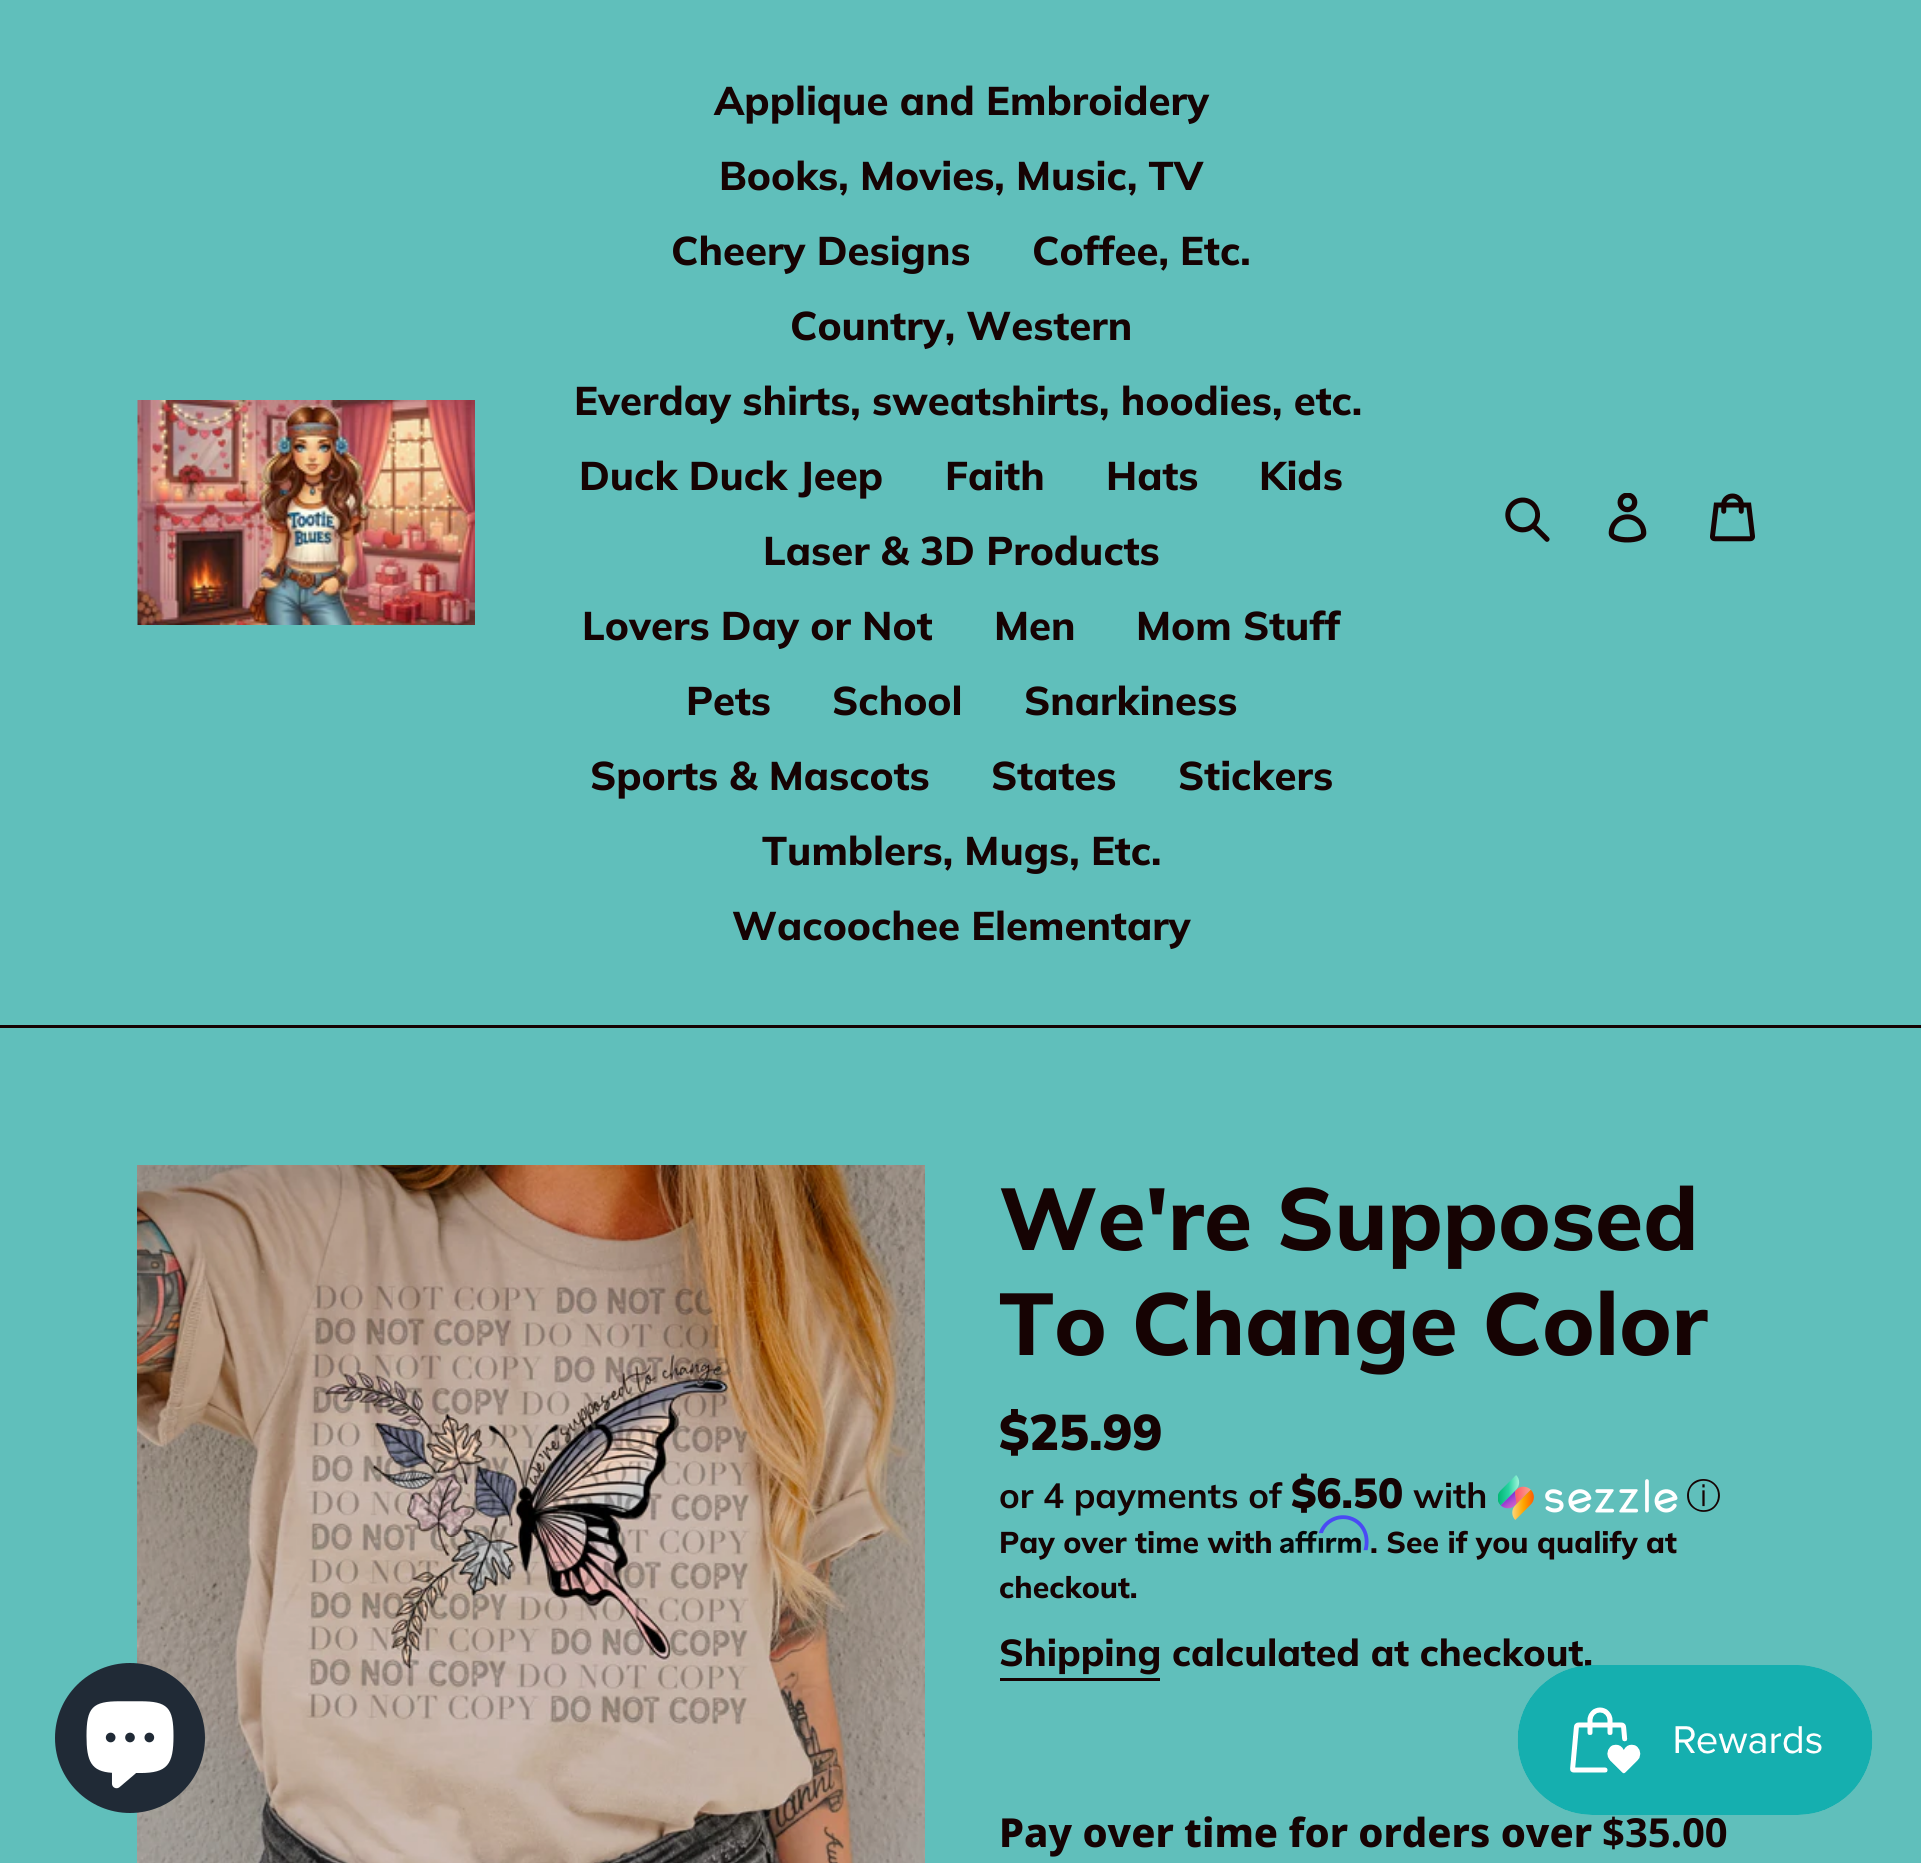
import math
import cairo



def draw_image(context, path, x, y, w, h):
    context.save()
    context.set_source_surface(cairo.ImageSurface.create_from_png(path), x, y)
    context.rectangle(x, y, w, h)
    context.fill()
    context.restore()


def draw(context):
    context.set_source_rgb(96 / 255, 191 / 255, 187 / 255)
    context.paint()
    context.set_source_rgb(21 / 255, 2 / 255, 2 / 255)
    context.rectangle(0, 1025, 1921, 3)
    context.fill()
    draw_image(context, "images/1.png", 137, 400, 338, 225)
    draw_image(context, "images/2.png", 1505, 497, 45, 45)
    draw_image(context, "images/3.png", 1608, 493, 39, 50)
    draw_image(context, "images/4.png", 1710, 493, 45, 49)
    draw_image(context, "images/6.png", 137, 1165, 788, 698)
    context.set_source_rgb(32 / 255, 42 / 255, 54 / 255)
    context.arc(130, 1738, 75, 0, 2 * math.pi)
    context.fill()
    draw_image(context, "images/5.png", 86, 1701, 88, 88)
    draw_image(context, "images/7.png", 1498, 1475, 180, 45)
    draw_image(context, "images/9.png", 1280, 1530, 81, 24)
    draw_image(context, "images/8.png", 1318, 1515, 51, 36)
    context.set_source_rgb(22 / 255, 3 / 255, 3 / 255)
    context.rectangle(1000, 1678, 160, 3)
    context.fill()
    context.select_font_face("Muli ExtraBold")
    context.set_font_size(40)
    context.move_to(714, 115)
    context.show_text("Applique and Embroidery")
    context.move_to(719, 190)
    context.show_text("Books, Movies, Music, TV")
    context.move_to(671, 265)
    context.show_text("Cheery Designs")
    context.move_to(1032, 265)
    context.show_text("Coffee, Etc.")
    context.move_to(790, 340)
    context.show_text("Country, Western")
    context.move_to(574, 415)
    context.show_text("Everday shirts, sweatshirts, hoodies, etc.")
    context.move_to(579, 490)
    context.show_text("Duck Duck Jeep")
    context.move_to(945, 490)
    context.show_text("Faith")
    context.move_to(1106, 490)
    context.show_text("Hats")
    context.move_to(1259, 490)
    context.show_text("Kids")
    context.move_to(763, 565)
    context.show_text("Laser & 3D Products")
    context.move_to(582, 640)
    context.show_text("Lovers Day or Not")
    context.move_to(994, 640)
    context.show_text("Men")
    context.move_to(1136, 640)
    context.show_text("Mom Stuff")
    context.move_to(686, 715)
    context.show_text("Pets")
    context.move_to(832, 715)
    context.show_text("School")
    context.move_to(1024, 715)
    context.show_text("Snarkiness")
    context.move_to(590, 790)
    context.show_text("Sports & Mascots")
    context.move_to(991, 790)
    context.show_text("States")
    context.move_to(1178, 790)
    context.show_text("Stickers")
    context.move_to(762, 865)
    context.show_text("Tumblers, Mugs, Etc.")
    context.move_to(732, 940)
    context.show_text("Wacoochee Elementary")
    context.set_font_size(87.5)
    context.move_to(999, 1250)
    context.show_text("We're Supposed")
    context.move_to(999, 1355)
    context.show_text("To Change Color")
    context.select_font_face("Muli Black")
    context.set_font_size(50)
    context.move_to(999, 1450)
    context.show_text("$25.99")
    context.select_font_face("Muli", cairo.FontSlant.NORMAL, cairo.FontWeight.BOLD)
    context.set_font_size(35)
    context.move_to(999, 1508)
    context.show_text("or 4 payments of")
    context.select_font_face("Muli Black")
    context.set_font_size(42)
    context.move_to(1291, 1508)
    context.show_text("$6.50")
    context.select_font_face("Muli", cairo.FontSlant.NORMAL, cairo.FontWeight.BOLD)
    context.set_font_size(35)
    context.move_to(1413, 1508)
    context.show_text("with")
    context.select_font_face("WenQuanYi Zen Hei Medium")
    context.move_to(1686, 1508)
    context.show_text("ⓘ")
    context.select_font_face("Muli ExtraBold")
    context.set_font_size(30)
    context.move_to(999, 1553)
    context.show_text("Pay over time with")
    context.move_to(1370, 1553)
    context.show_text(". See if you qualify at")
    context.move_to(999, 1598)
    context.show_text("checkout.")
    context.set_font_size(37.5)
    context.move_to(999, 1666)
    context.show_text("Shipping")
    context.move_to(1172, 1666)
    context.show_text("calculated at checkout.")
    context.select_font_face("Noto Sans ExtraBold")
    context.set_font_size(40)
    context.move_to(999, 1847)
    context.show_text("Pay over time for orders over")
    context.select_font_face("Noto Sans", cairo.FontSlant.NORMAL, cairo.FontWeight.BOLD)
    context.move_to(1602, 1847)
    context.show_text("$35.00")
    draw_image(context, "images/10.png", 1517, 1665, 356, 150)


surface = cairo.ImageSurface(cairo.Format.RGB24, 1921, 1863)
context = cairo.Context(surface)
options = cairo.FontOptions()
options.set_hint_metrics(cairo.HintMetrics.OFF)
options.set_hint_style(cairo.HintStyle.NONE)
context.set_font_options(options)
context.set_miter_limit(4)
draw(context)
surface.write_to_png("out.png")
